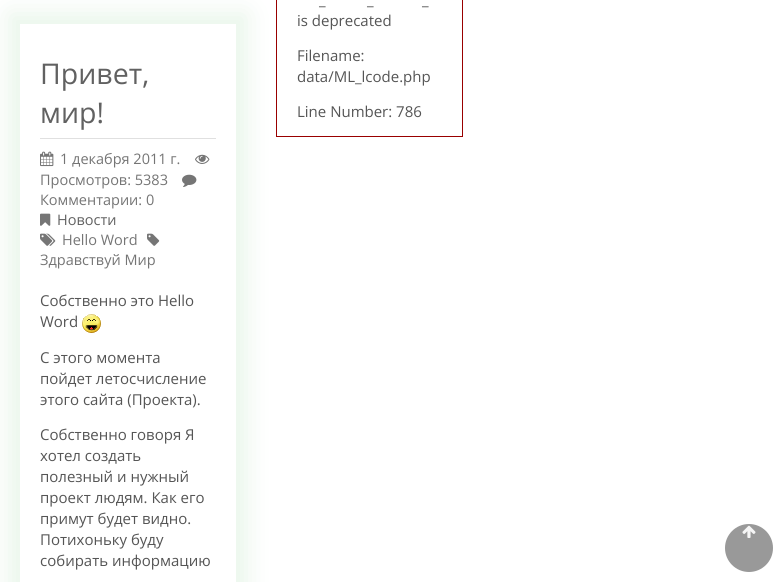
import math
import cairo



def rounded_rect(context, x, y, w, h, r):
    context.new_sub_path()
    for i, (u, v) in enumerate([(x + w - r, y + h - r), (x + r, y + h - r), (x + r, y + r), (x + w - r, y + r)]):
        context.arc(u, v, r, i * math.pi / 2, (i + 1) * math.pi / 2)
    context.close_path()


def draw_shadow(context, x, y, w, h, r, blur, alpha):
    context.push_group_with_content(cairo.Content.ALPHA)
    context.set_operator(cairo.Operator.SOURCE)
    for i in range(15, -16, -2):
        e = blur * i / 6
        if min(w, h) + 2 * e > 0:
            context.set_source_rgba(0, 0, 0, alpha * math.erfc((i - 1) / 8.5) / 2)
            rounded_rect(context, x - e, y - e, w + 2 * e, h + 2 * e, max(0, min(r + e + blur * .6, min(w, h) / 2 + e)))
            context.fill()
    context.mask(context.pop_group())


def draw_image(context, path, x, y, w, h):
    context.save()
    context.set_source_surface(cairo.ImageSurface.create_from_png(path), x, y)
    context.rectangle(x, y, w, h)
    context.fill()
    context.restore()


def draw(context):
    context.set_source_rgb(1, 1, 1)
    context.paint()
    context.save()
    context.set_fill_rule(cairo.FillRule.EVEN_ODD)
    context.new_path()
    context.move_to(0, 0)
    context.line_to(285, 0)
    context.line_to(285, 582)
    context.line_to(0, 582)
    context.close_path()
    context.move_to(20, 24)
    context.line_to(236, 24)
    context.line_to(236, 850)
    context.line_to(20, 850)
    context.close_path()
    context.clip()
    context.set_source_rgb(232 / 255, 245 / 255, 233 / 255)
    draw_shadow(context, 10, 14, 236, 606, 0, 12.5, 1)
    context.restore()
    context.set_source_rgb(224 / 255, 224 / 255, 224 / 255)
    context.rectangle(40, 138, 176, 1)
    context.fill()
    draw_image(context, "images/1.png", 40, 151, 14, 16)
    draw_image(context, "images/2.png", 195, 154, 15, 10)
    draw_image(context, "images/3.png", 182, 174, 15, 13)
    draw_image(context, "images/4.png", 40, 213, 11, 13)
    draw_image(context, "images/5.png", 40, 233, 16, 13)
    draw_image(context, "images/6.png", 147, 233, 13, 13)
    draw_image(context, "images/7.png", 82, 314, 19, 19)
    context.rectangle(276.5, -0.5, 186, 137)
    context.set_source_rgb(153 / 255, 0, 0)
    context.set_line_width(1)
    context.stroke()
    context.set_source_rgb(153 / 255, 153 / 255, 153 / 255)
    context.arc(749, 548, 24, 0, 2 * math.pi)
    context.fill()
    draw_image(context, "images/8.png", 742, 525, 14, 13)
    context.select_font_face("Open Sans")
    context.set_font_size(28.5)
    context.set_source_rgb(97 / 255, 97 / 255, 97 / 255)
    context.move_to(40, 84)
    context.show_text("Привет,")
    context.move_to(40, 123)
    context.show_text("мир!")
    context.set_font_size(14.5)
    context.set_source_rgb(117 / 255, 117 / 255, 117 / 255)
    context.move_to(60, 164)
    context.show_text("1 декабря 2011 г.")
    context.move_to(40, 185)
    context.show_text("Просмотров: 5383")
    context.move_to(40, 205)
    context.show_text("Комментарии: 0")
    context.set_source_rgb(97 / 255, 97 / 255, 97 / 255)
    context.move_to(57, 225)
    context.show_text("Новости")
    context.set_source_rgb(117 / 255, 117 / 255, 117 / 255)
    context.move_to(62, 245)
    context.show_text("Hello Word")
    context.move_to(40, 265)
    context.show_text("Здравствуй Мир")
    context.set_font_size(15)
    context.set_source_rgb(85 / 255, 85 / 255, 85 / 255)
    context.move_to(40, 306)
    context.show_text("Собственно это Hello")
    context.move_to(40, 327)
    context.show_text("Word")
    context.move_to(40, 363)
    context.show_text("С этого момента")
    context.move_to(40, 384)
    context.show_text("пойдет летосчисление")
    context.move_to(40, 405)
    context.show_text("этого сайта (Проекта).")
    context.move_to(40, 440)
    context.show_text("Собственно говоря Я")
    context.move_to(40, 461)
    context.show_text("хотел создать")
    context.move_to(40, 482)
    context.show_text("полезный и нужный")
    context.move_to(40, 503)
    context.show_text("проект людям. Как его")
    context.move_to(40, 524)
    context.show_text("примут будет видно.")
    context.move_to(40, 545)
    context.show_text("Потихоньку буду")
    context.move_to(40, 566)
    context.show_text("собирать информацию")
    context.move_to(319, 5)
    context.show_text("_")
    context.move_to(367, 5)
    context.show_text("_")
    context.move_to(422, 5)
    context.show_text("_")
    context.move_to(297, 26)
    context.show_text("is deprecated")
    context.move_to(297, 61)
    context.show_text("Filename:")
    context.move_to(297, 82)
    context.show_text("data/ML_lcode.php")
    context.move_to(297, 117)
    context.show_text("Line Number: 786")


surface = cairo.ImageSurface(cairo.Format.RGB24, 783, 582)
context = cairo.Context(surface)
options = cairo.FontOptions()
options.set_hint_metrics(cairo.HintMetrics.OFF)
options.set_hint_style(cairo.HintStyle.NONE)
context.set_font_options(options)
context.set_miter_limit(4)
draw(context)
surface.write_to_png("out.png")
